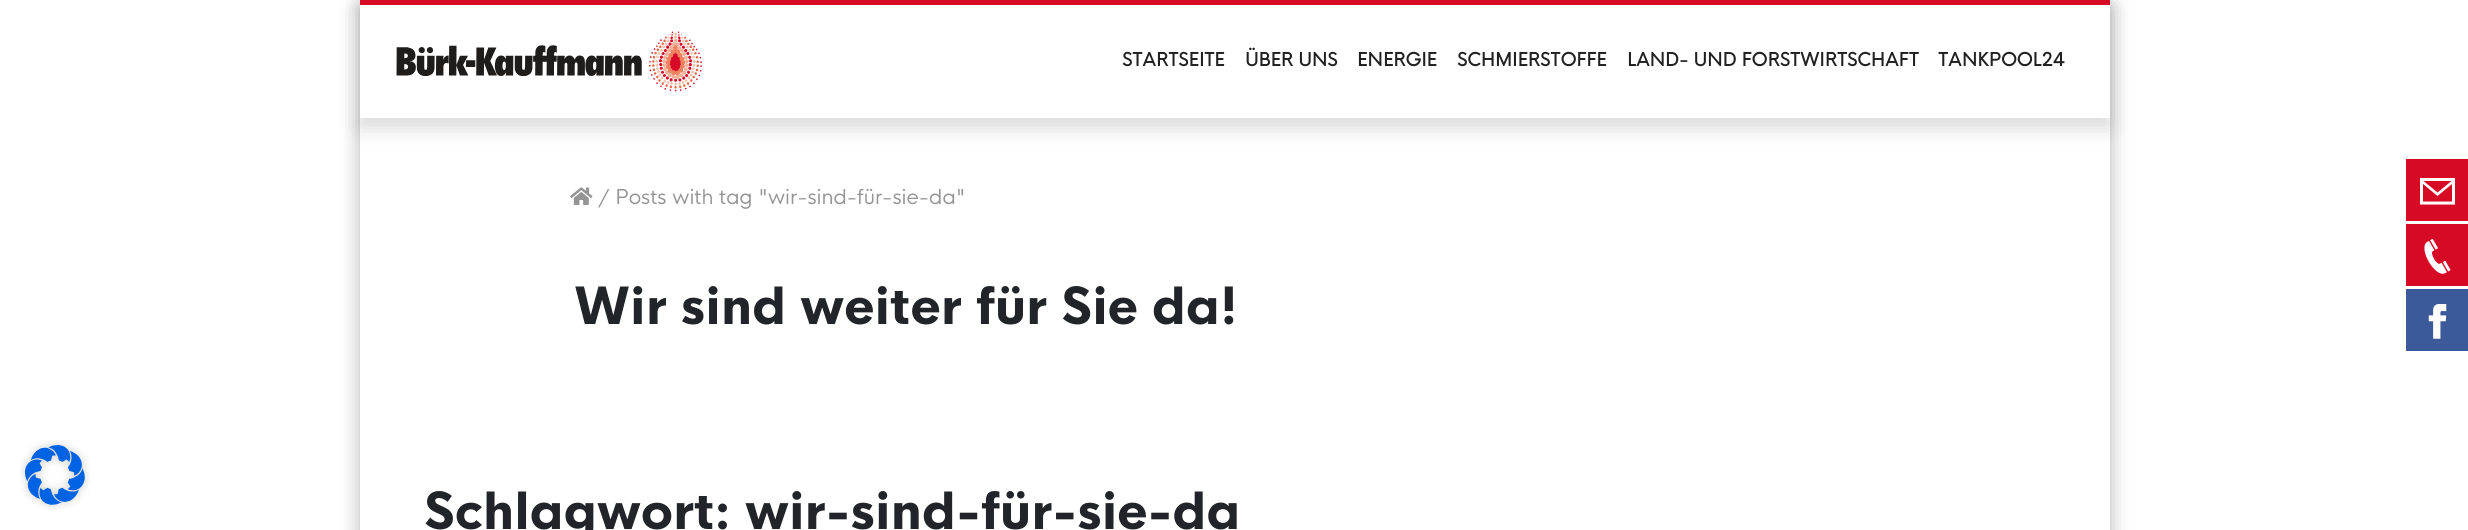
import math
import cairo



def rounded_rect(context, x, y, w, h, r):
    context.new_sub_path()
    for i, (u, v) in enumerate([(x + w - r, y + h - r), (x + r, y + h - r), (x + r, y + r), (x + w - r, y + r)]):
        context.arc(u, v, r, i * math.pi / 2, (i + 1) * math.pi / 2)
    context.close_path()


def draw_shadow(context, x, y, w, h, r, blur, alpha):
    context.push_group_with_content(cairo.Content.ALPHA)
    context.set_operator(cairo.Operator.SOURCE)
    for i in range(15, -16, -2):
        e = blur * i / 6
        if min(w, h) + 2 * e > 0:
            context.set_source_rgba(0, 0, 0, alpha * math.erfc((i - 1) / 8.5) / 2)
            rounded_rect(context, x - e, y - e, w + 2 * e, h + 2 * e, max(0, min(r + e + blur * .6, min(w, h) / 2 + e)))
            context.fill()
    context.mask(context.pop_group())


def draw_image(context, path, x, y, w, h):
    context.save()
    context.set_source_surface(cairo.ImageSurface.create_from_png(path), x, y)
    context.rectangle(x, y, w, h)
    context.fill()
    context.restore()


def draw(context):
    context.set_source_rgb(1, 1, 1)
    context.paint()
    draw_image(context, "images/1.png", 20, 440, 70, 70)
    context.save()
    context.set_fill_rule(cairo.FillRule.EVEN_ODD)
    context.new_path()
    context.move_to(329, 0)
    context.line_to(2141, 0)
    context.line_to(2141, 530)
    context.line_to(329, 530)
    context.close_path()
    context.move_to(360, 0)
    context.line_to(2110, 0)
    context.line_to(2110, 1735)
    context.line_to(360, 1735)
    context.close_path()
    context.clip()
    context.set_source_rgb(0, 0, 0)
    draw_shadow(context, 360, 5, 1750, 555, 0, 10, 0.3)
    context.restore()
    context.save()
    context.set_fill_rule(cairo.FillRule.EVEN_ODD)
    context.new_path()
    context.move_to(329, 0)
    context.line_to(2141, 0)
    context.line_to(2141, 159)
    context.line_to(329, 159)
    context.close_path()
    context.move_to(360, 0)
    context.line_to(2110, 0)
    context.line_to(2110, 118)
    context.line_to(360, 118)
    context.close_path()
    context.clip()
    context.set_source_rgb(0, 0, 0)
    draw_shadow(context, 360, 10, 1750, 118, 0, 10, 0.15)
    context.restore()
    context.set_source_rgb(214 / 255, 10 / 255, 37 / 255)
    context.rectangle(360, 0, 1750, 5)
    context.fill()
    draw_image(context, "images/2.png", 396, 31, 306, 61)
    draw_image(context, "images/3.png", 570, 187, 23, 18)
    context.rectangle(2406, 159, 62, 62)
    context.fill()
    context.set_source_rgb(1, 1, 1)
    context.new_path()
    context.move_to(2420, 178)
    context.line_to(2420, 204.5)
    context.line_to(2455, 204.5)
    context.line_to(2455, 178)
    context.close_path()
    context.move_to(2451.5, 181)
    context.line_to(2437.5, 192.5)
    context.line_to(2423.5, 181)
    context.close_path()
    context.move_to(2423, 201.5)
    context.line_to(2423, 184)
    context.line_to(2437.5, 196)
    context.line_to(2452, 184)
    context.line_to(2452, 201.5)
    context.close_path()
    context.fill()
    context.set_source_rgb(214 / 255, 10 / 255, 37 / 255)
    context.rectangle(2406, 224, 62, 62)
    context.fill()
    draw_image(context, "images/4.png", 2424, 239, 27, 35)
    context.set_source_rgb(60 / 255, 90 / 255, 153 / 255)
    context.rectangle(2406, 289, 62, 62)
    context.fill()
    draw_image(context, "images/5.png", 2428, 304, 19, 35)
    context.select_font_face("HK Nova", cairo.FontSlant.NORMAL, cairo.FontWeight.BOLD)
    context.set_font_size(18)
    context.set_source_rgb(33 / 255, 33 / 255, 33 / 255)
    context.move_to(1122, 66)
    context.show_text("STARTSEITE")
    context.move_to(1245, 66)
    context.show_text("ÜBER UNS")
    context.move_to(1357, 66)
    context.show_text("ENERGIE")
    context.move_to(1457, 66)
    context.show_text("SCHMIERSTOFFE")
    context.move_to(1627, 66)
    context.show_text("LAND- UND FORSTWIRTSCHAFT")
    context.move_to(1938, 66)
    context.show_text("TANKPOOL24")
    context.select_font_face("HK Nova")
    context.set_font_size(20)
    context.set_source_rgb(149 / 255, 149 / 255, 149 / 255)
    context.move_to(598, 204)
    context.show_text("/ Posts with tag \"wir-sind-für-sie-da\"")
    context.select_font_face("HK Nova ExtraBold")
    context.set_font_size(50)
    context.set_source_rgb(33 / 255, 37 / 255, 41 / 255)
    context.move_to(574, 324)
    context.show_text("Wir sind weiter für Sie da!")
    context.move_to(424, 529)
    context.show_text("Schlagwort: wir-sind-für-sie-da")


surface = cairo.ImageSurface(cairo.Format.RGB24, 2468, 530)
context = cairo.Context(surface)
options = cairo.FontOptions()
options.set_hint_metrics(cairo.HintMetrics.OFF)
options.set_hint_style(cairo.HintStyle.NONE)
context.set_font_options(options)
context.set_miter_limit(4)
draw(context)
surface.write_to_png("out.png")
